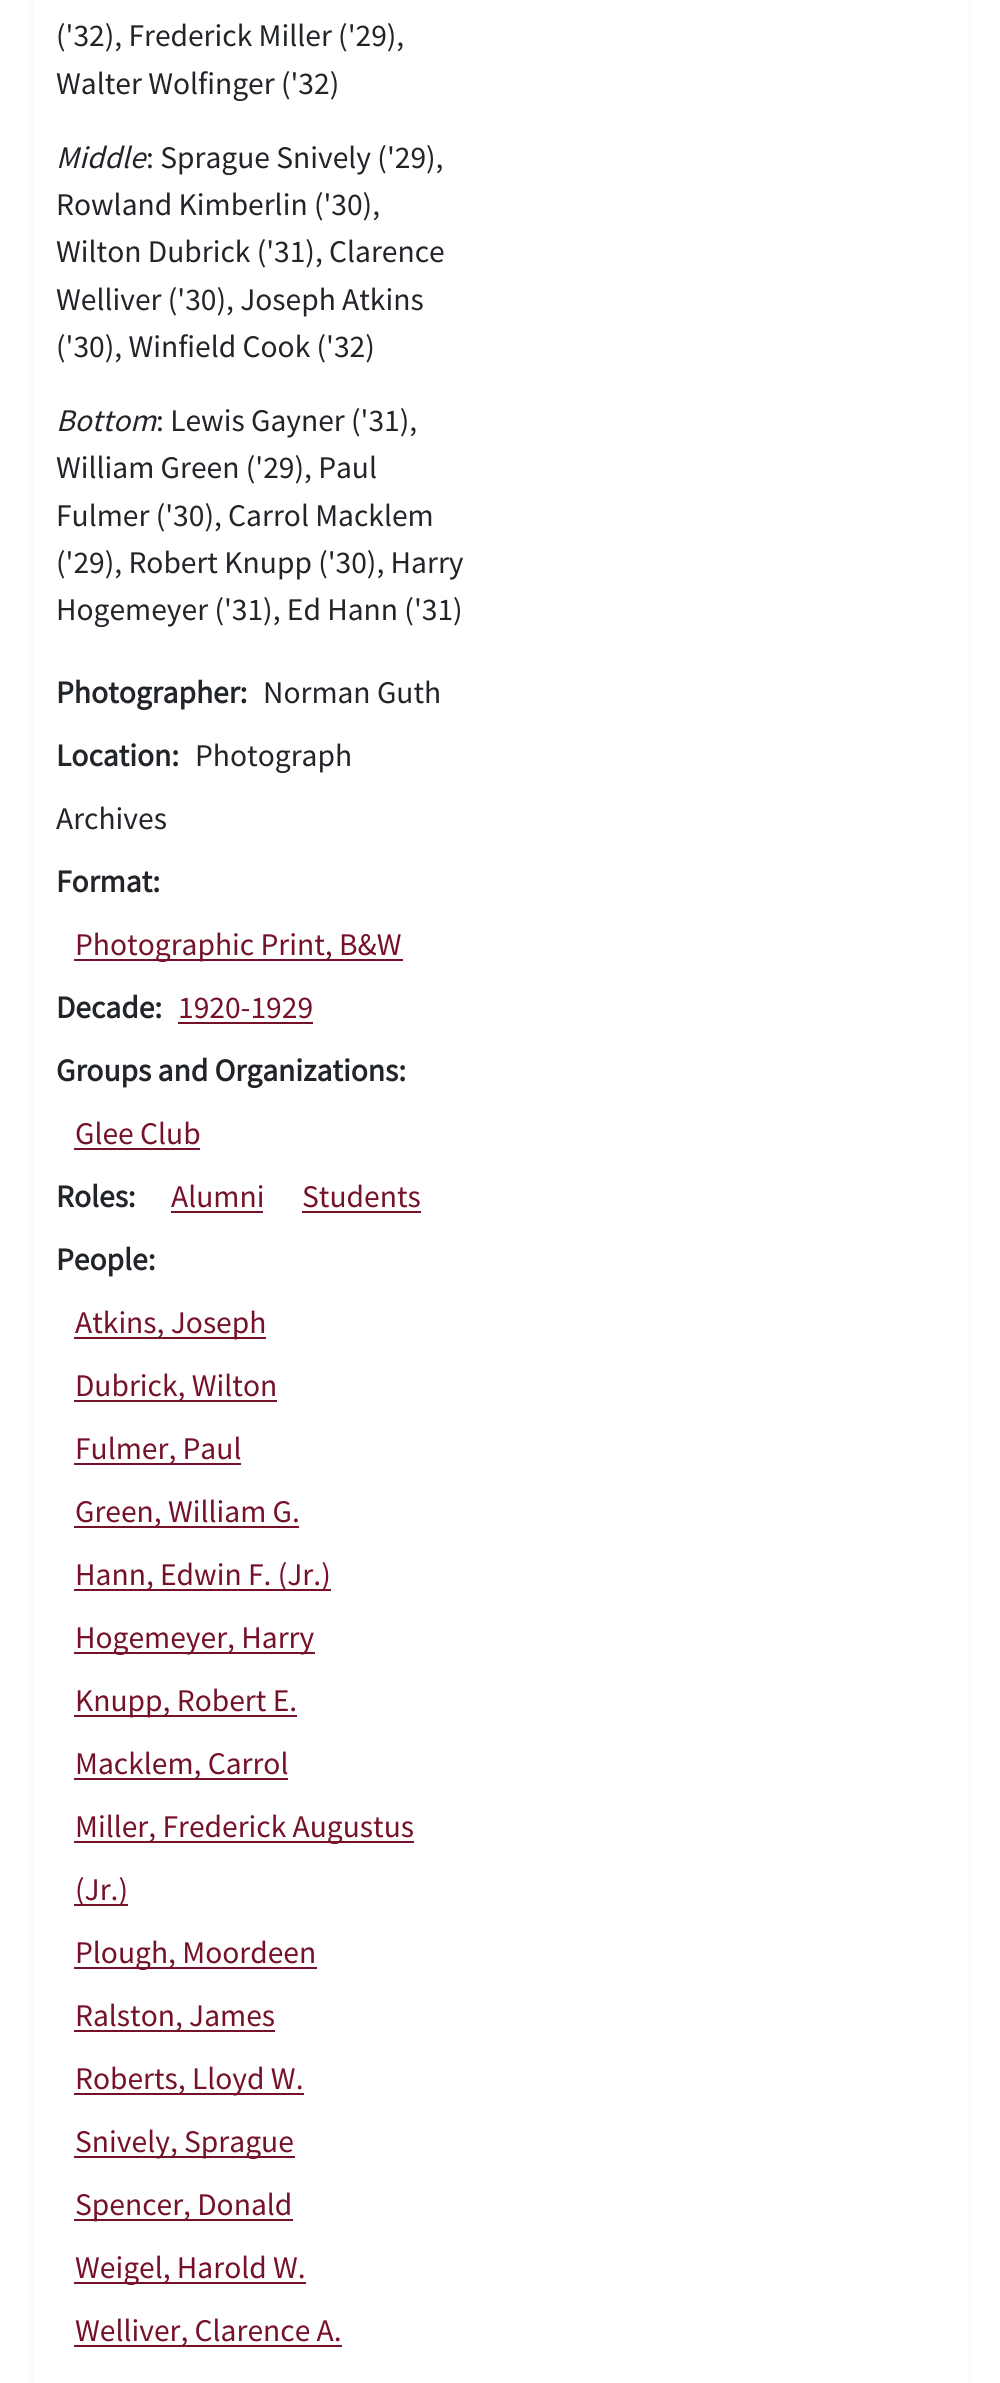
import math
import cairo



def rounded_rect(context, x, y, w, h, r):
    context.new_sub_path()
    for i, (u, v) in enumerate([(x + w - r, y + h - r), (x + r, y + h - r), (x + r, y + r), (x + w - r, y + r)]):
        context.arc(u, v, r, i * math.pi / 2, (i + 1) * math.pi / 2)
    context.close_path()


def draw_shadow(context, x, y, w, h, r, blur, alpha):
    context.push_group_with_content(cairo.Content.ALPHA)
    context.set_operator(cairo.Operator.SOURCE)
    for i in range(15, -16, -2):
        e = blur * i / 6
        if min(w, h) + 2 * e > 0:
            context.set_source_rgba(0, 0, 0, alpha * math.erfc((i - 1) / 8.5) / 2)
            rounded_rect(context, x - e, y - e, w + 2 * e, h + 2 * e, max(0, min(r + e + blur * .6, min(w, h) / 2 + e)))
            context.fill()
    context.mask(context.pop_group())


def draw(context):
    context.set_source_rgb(1, 1, 1)
    context.paint()
    context.set_source_rgb(166 / 255, 151 / 255, 124 / 255)
    draw_shadow(context, 34, -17, 934, 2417, 0, 5.5, 0.1)
    context.set_source_rgb(1, 1, 1)
    context.rectangle(34, 0, 934, 2383)
    context.fill()
    context.set_source_rgb(117 / 255, 18 / 255, 41 / 255)
    context.rectangle(74, 959, 329, 2)
    context.fill()
    context.rectangle(178, 1022, 135, 2)
    context.fill()
    context.rectangle(74, 1148, 126, 2)
    context.fill()
    context.rectangle(171, 1211, 92, 2)
    context.fill()
    context.rectangle(302, 1211, 119, 2)
    context.fill()
    context.rectangle(74, 1337, 192, 2)
    context.fill()
    context.rectangle(74, 1400, 203, 2)
    context.fill()
    context.rectangle(74, 1463, 167, 2)
    context.fill()
    context.rectangle(74, 1526, 225, 2)
    context.fill()
    context.rectangle(74, 1589, 257, 2)
    context.fill()
    context.rectangle(74, 1652, 241, 2)
    context.fill()
    context.rectangle(74, 1715, 223, 2)
    context.fill()
    context.rectangle(74, 1778, 214, 2)
    context.fill()
    context.rectangle(74, 1841, 340, 2)
    context.fill()
    context.rectangle(74, 1904, 54, 2)
    context.fill()
    context.rectangle(74, 1967, 243, 2)
    context.fill()
    context.rectangle(74, 2030, 201, 2)
    context.fill()
    context.rectangle(74, 2093, 230, 2)
    context.fill()
    context.rectangle(74, 2156, 221, 2)
    context.fill()
    context.rectangle(74, 2219, 219, 2)
    context.fill()
    context.rectangle(74, 2282, 232, 2)
    context.fill()
    context.rectangle(74, 2345, 268, 2)
    context.fill()
    context.select_font_face("Source Sans Pro")
    context.set_font_size(31.5)
    context.set_source_rgb(33 / 255, 37 / 255, 41 / 255)
    context.move_to(56, 46)
    context.show_text("('32), Frederick Miller ('29),")
    context.move_to(56, 94)
    context.show_text("Walter Wolfinger ('32)")
    context.select_font_face("Source Sans Pro", cairo.FontSlant.ITALIC)
    context.move_to(56, 168)
    context.show_text("Middle")
    context.select_font_face("Source Sans Pro")
    context.move_to(146, 168)
    context.show_text(": Sprague Snively ('29),")
    context.move_to(56, 215)
    context.show_text("Rowland Kimberlin ('30),")
    context.move_to(56, 262)
    context.show_text("Wilton Dubrick ('31), Clarence")
    context.move_to(56, 310)
    context.show_text("Welliver ('30), Joseph Atkins")
    context.move_to(56, 357)
    context.show_text("('30), Winfield Cook ('32)")
    context.select_font_face("Source Sans Pro", cairo.FontSlant.ITALIC)
    context.move_to(56, 431)
    context.show_text("Bottom")
    context.select_font_face("Source Sans Pro")
    context.move_to(156, 431)
    context.show_text(": Lewis Gayner ('31),")
    context.move_to(56, 478)
    context.show_text("William Green ('29), Paul")
    context.move_to(56, 526)
    context.show_text("Fulmer ('30), Carrol Macklem")
    context.move_to(56, 573)
    context.show_text("('29), Robert Knupp ('30), Harry")
    context.move_to(56, 620)
    context.show_text("Hogemeyer ('31), Ed Hann ('31)")
    context.select_font_face("Source Sans Pro", cairo.FontSlant.NORMAL, cairo.FontWeight.BOLD)
    context.move_to(56, 703)
    context.show_text("Photographer:")
    context.select_font_face("Source Sans Pro")
    context.move_to(263, 703)
    context.show_text("Norman Guth")
    context.move_to(195, 766)
    context.show_text("Photograph")
    context.move_to(56, 829)
    context.show_text("Archives")
    context.select_font_face("Source Sans Pro", cairo.FontSlant.NORMAL, cairo.FontWeight.BOLD)
    context.move_to(56, 766)
    context.show_text("Location:")
    context.move_to(56, 892)
    context.show_text("Format:")
    context.select_font_face("Source Sans Pro")
    context.set_source_rgb(117 / 255, 18 / 255, 41 / 255)
    context.move_to(75, 955)
    context.show_text("Photographic Print, B&W")
    context.select_font_face("Source Sans Pro", cairo.FontSlant.NORMAL, cairo.FontWeight.BOLD)
    context.set_source_rgb(33 / 255, 37 / 255, 41 / 255)
    context.move_to(56, 1018)
    context.show_text("Decade:")
    context.select_font_face("Source Sans Pro")
    context.set_source_rgb(117 / 255, 18 / 255, 41 / 255)
    context.move_to(178, 1018)
    context.show_text("1920-1929")
    context.select_font_face("Source Sans Pro", cairo.FontSlant.NORMAL, cairo.FontWeight.BOLD)
    context.set_source_rgb(33 / 255, 37 / 255, 41 / 255)
    context.move_to(56, 1081)
    context.show_text("Groups and Organizations:")
    context.select_font_face("Source Sans Pro")
    context.set_source_rgb(117 / 255, 18 / 255, 41 / 255)
    context.move_to(75, 1144)
    context.show_text("Glee Club")
    context.select_font_face("Source Sans Pro", cairo.FontSlant.NORMAL, cairo.FontWeight.BOLD)
    context.set_source_rgb(33 / 255, 37 / 255, 41 / 255)
    context.move_to(56, 1207)
    context.show_text("Roles:")
    context.select_font_face("Source Sans Pro")
    context.set_source_rgb(117 / 255, 18 / 255, 41 / 255)
    context.move_to(171, 1207)
    context.show_text("Alumni")
    context.move_to(302, 1207)
    context.show_text("Students")
    context.select_font_face("Source Sans Pro", cairo.FontSlant.NORMAL, cairo.FontWeight.BOLD)
    context.set_source_rgb(33 / 255, 37 / 255, 41 / 255)
    context.move_to(56, 1270)
    context.show_text("People:")
    context.select_font_face("Source Sans Pro")
    context.set_source_rgb(117 / 255, 18 / 255, 41 / 255)
    context.move_to(75, 1333)
    context.show_text("Atkins, Joseph")
    context.move_to(75, 1396)
    context.show_text("Dubrick, Wilton")
    context.move_to(75, 1459)
    context.show_text("Fulmer, Paul")
    context.move_to(75, 1522)
    context.show_text("Green, William G.")
    context.move_to(75, 1585)
    context.show_text("Hann, Edwin F. (Jr.)")
    context.move_to(75, 1648)
    context.show_text("Hogemeyer, Harry")
    context.move_to(75, 1711)
    context.show_text("Knupp, Robert E.")
    context.move_to(75, 1774)
    context.show_text("Macklem, Carrol")
    context.move_to(75, 1837)
    context.show_text("Miller, Frederick Augustus")
    context.move_to(75, 1900)
    context.show_text("(Jr.)")
    context.move_to(75, 1963)
    context.show_text("Plough, Moordeen")
    context.move_to(75, 2026)
    context.show_text("Ralston, James")
    context.move_to(75, 2089)
    context.show_text("Roberts, Lloyd W.")
    context.move_to(75, 2152)
    context.show_text("Snively, Sprague")
    context.move_to(75, 2215)
    context.show_text("Spencer, Donald")
    context.move_to(75, 2278)
    context.show_text("Weigel, Harold W.")
    context.move_to(75, 2341)
    context.show_text("Welliver, Clarence A.")


surface = cairo.ImageSurface(cairo.Format.RGB24, 1000, 2383)
context = cairo.Context(surface)
options = cairo.FontOptions()
options.set_hint_metrics(cairo.HintMetrics.OFF)
options.set_hint_style(cairo.HintStyle.NONE)
context.set_font_options(options)
context.set_miter_limit(4)
draw(context)
surface.write_to_png("out.png")
